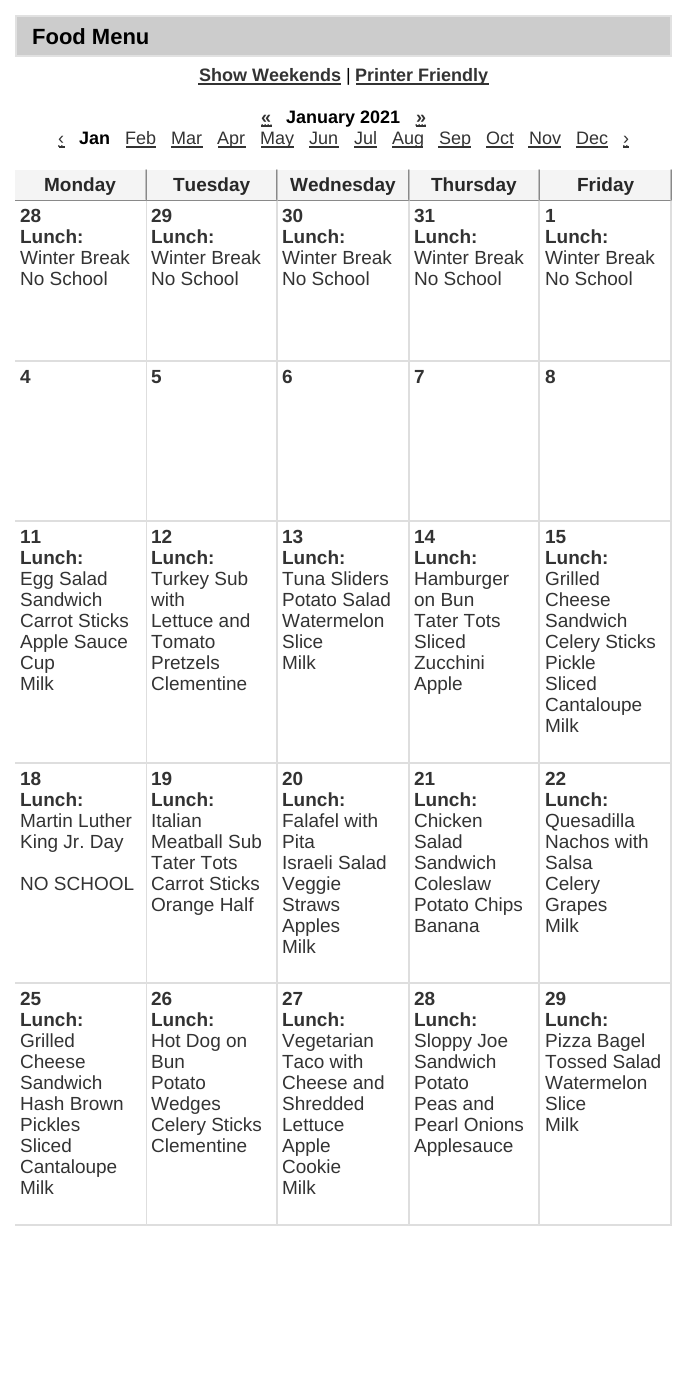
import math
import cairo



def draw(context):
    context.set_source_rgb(1, 1, 1)
    context.paint()
    context.set_source_rgb(204 / 255, 204 / 255, 204 / 255)
    context.rectangle(16, 16, 655, 40)
    context.fill_preserve()
    context.set_source_rgb(225 / 255, 225 / 255, 225 / 255)
    context.stroke()
    context.set_source_rgb(51 / 255, 51 / 255, 51 / 255)
    context.rectangle(198, 83, 143, 2)
    context.fill()
    context.rectangle(356, 83, 133, 2)
    context.fill()
    context.new_path()
    context.move_to(261.5, 125)
    context.line_to(263, 125)
    context.move_to(264.5, 125)
    context.line_to(266, 125)
    context.move_to(267.5, 125)
    context.line_to(269, 125)
    context.move_to(270.5, 125)
    context.line_to(271.5, 125)
    context.set_line_width(1.5)
    context.stroke()
    context.rectangle(261, 125, 11, 2)
    context.fill()
    context.new_path()
    context.move_to(415.5, 125)
    context.line_to(417, 125)
    context.move_to(418.5, 125)
    context.line_to(420, 125)
    context.move_to(421.5, 125)
    context.line_to(423, 125)
    context.move_to(424.5, 125)
    context.line_to(425.5, 125)
    context.stroke()
    context.rectangle(416, 125, 10, 2)
    context.fill()
    context.new_path()
    context.move_to(58, 146)
    context.line_to(59.5, 146)
    context.move_to(61, 146)
    context.line_to(62.5, 146)
    context.stroke()
    context.rectangle(59, 146, 6, 2)
    context.fill()
    context.rectangle(126, 146, 30, 2)
    context.fill()
    context.rectangle(171, 146, 32, 2)
    context.fill()
    context.rectangle(218, 146, 28, 2)
    context.fill()
    context.rectangle(261, 146, 33, 2)
    context.fill()
    context.rectangle(309, 146, 30, 2)
    context.fill()
    context.rectangle(354, 146, 23, 2)
    context.fill()
    context.rectangle(392, 146, 31, 2)
    context.fill()
    context.rectangle(438, 146, 33, 2)
    context.fill()
    context.rectangle(486, 146, 27, 2)
    context.fill()
    context.rectangle(528, 146, 33, 2)
    context.fill()
    context.rectangle(576, 146, 32, 2)
    context.fill()
    context.new_path()
    context.move_to(623, 146)
    context.line_to(624.5, 146)
    context.move_to(626, 146)
    context.line_to(627.5, 146)
    context.stroke()
    context.rectangle(623, 146, 6, 2)
    context.fill()
    context.set_source_rgb(244 / 255, 244 / 255, 244 / 255)
    context.rectangle(15, 170, 657, 31)
    context.fill()
    context.set_source_rgb(137 / 255, 137 / 255, 137 / 255)
    context.new_path()
    context.move_to(147, 169.5)
    context.line_to(147, 201)
    context.line_to(145.5, 199.5)
    context.line_to(145.5, 169.5)
    context.close_path()
    context.fill()
    context.set_source_rgba(0, 0, 0, 0.44)
    context.new_path()
    context.move_to(147, 201)
    context.line_to(15, 201)
    context.line_to(15, 200)
    context.line_to(146, 200)
    context.close_path()
    context.fill()
    context.set_source_rgb(137 / 255, 137 / 255, 137 / 255)
    context.new_path()
    context.move_to(277.5, 169.5)
    context.line_to(277.5, 201)
    context.line_to(276, 199.5)
    context.line_to(276, 169.5)
    context.close_path()
    context.fill()
    context.set_source_rgba(0, 0, 0, 0.44)
    context.new_path()
    context.move_to(278, 201)
    context.line_to(147, 201)
    context.line_to(147, 200)
    context.line_to(276, 200)
    context.close_path()
    context.fill()
    context.set_source_rgb(137 / 255, 137 / 255, 137 / 255)
    context.new_path()
    context.move_to(409.5, 169.5)
    context.line_to(409.5, 201)
    context.line_to(408, 199.5)
    context.line_to(408, 169.5)
    context.close_path()
    context.fill()
    context.set_source_rgba(0, 0, 0, 0.44)
    context.new_path()
    context.move_to(410, 201)
    context.line_to(278, 201)
    context.line_to(278, 200)
    context.line_to(408, 200)
    context.close_path()
    context.fill()
    context.set_source_rgb(137 / 255, 137 / 255, 137 / 255)
    context.new_path()
    context.move_to(540, 169.5)
    context.line_to(540, 201)
    context.line_to(538.5, 199.5)
    context.line_to(538.5, 169.5)
    context.close_path()
    context.fill()
    context.new_path()
    context.move_to(540, 201)
    context.line_to(410, 201)
    context.line_to(410, 200)
    context.line_to(538, 200)
    context.close_path()
    context.fill()
    context.new_path()
    context.move_to(672, 169.5)
    context.line_to(672, 201)
    context.line_to(670.5, 199.5)
    context.line_to(670.5, 169.5)
    context.close_path()
    context.fill()
    context.new_path()
    context.move_to(672, 201)
    context.line_to(540, 201)
    context.line_to(540, 200)
    context.line_to(670, 200)
    context.close_path()
    context.fill()
    context.set_source_rgb(222 / 255, 222 / 255, 222 / 255)
    context.new_path()
    context.move_to(147, 201)
    context.line_to(147, 362)
    context.line_to(146, 360)
    context.line_to(146, 201)
    context.close_path()
    context.fill()
    context.set_source_rgba(0, 0, 0, 0.13)
    context.new_path()
    context.move_to(147, 362)
    context.line_to(15, 362)
    context.line_to(15, 360)
    context.line_to(146, 360)
    context.close_path()
    context.fill()
    context.set_source_rgb(222 / 255, 222 / 255, 222 / 255)
    context.new_path()
    context.move_to(278, 201)
    context.line_to(278, 362)
    context.line_to(276, 360)
    context.line_to(276, 201)
    context.close_path()
    context.fill()
    context.set_source_rgba(0, 0, 0, 0.13)
    context.new_path()
    context.move_to(278, 362)
    context.line_to(147, 362)
    context.line_to(147, 360)
    context.line_to(276, 360)
    context.close_path()
    context.fill()
    context.set_source_rgb(222 / 255, 222 / 255, 222 / 255)
    context.new_path()
    context.move_to(410, 201)
    context.line_to(410, 362)
    context.line_to(408, 360)
    context.line_to(408, 201)
    context.close_path()
    context.fill()
    context.set_source_rgba(0, 0, 0, 0.13)
    context.new_path()
    context.move_to(410, 362)
    context.line_to(278, 362)
    context.line_to(278, 360)
    context.line_to(408, 360)
    context.close_path()
    context.fill()
    context.set_source_rgb(222 / 255, 222 / 255, 222 / 255)
    context.new_path()
    context.move_to(540, 201)
    context.line_to(540, 362)
    context.line_to(538, 360)
    context.line_to(538, 201)
    context.close_path()
    context.fill()
    context.set_source_rgba(0, 0, 0, 0.13)
    context.new_path()
    context.move_to(540, 362)
    context.line_to(410, 362)
    context.line_to(410, 360)
    context.line_to(538, 360)
    context.close_path()
    context.fill()
    context.set_source_rgb(222 / 255, 222 / 255, 222 / 255)
    context.new_path()
    context.move_to(672, 201)
    context.line_to(672, 362)
    context.line_to(670, 360)
    context.line_to(670, 201)
    context.close_path()
    context.fill()
    context.set_source_rgba(0, 0, 0, 0.13)
    context.new_path()
    context.move_to(672, 362)
    context.line_to(540, 362)
    context.line_to(540, 360)
    context.line_to(670, 360)
    context.close_path()
    context.fill()
    context.set_source_rgb(222 / 255, 222 / 255, 222 / 255)
    context.new_path()
    context.move_to(147, 362)
    context.line_to(147, 522)
    context.line_to(146, 520)
    context.line_to(146, 362)
    context.close_path()
    context.fill()
    context.set_source_rgba(0, 0, 0, 0.13)
    context.new_path()
    context.move_to(147, 522)
    context.line_to(15, 522)
    context.line_to(15, 520)
    context.line_to(146, 520)
    context.close_path()
    context.fill()
    context.set_source_rgb(222 / 255, 222 / 255, 222 / 255)
    context.new_path()
    context.move_to(278, 362)
    context.line_to(278, 522)
    context.line_to(276, 520)
    context.line_to(276, 362)
    context.close_path()
    context.fill()
    context.set_source_rgba(0, 0, 0, 0.13)
    context.new_path()
    context.move_to(278, 522)
    context.line_to(147, 522)
    context.line_to(147, 520)
    context.line_to(276, 520)
    context.close_path()
    context.fill()
    context.set_source_rgb(222 / 255, 222 / 255, 222 / 255)
    context.new_path()
    context.move_to(410, 362)
    context.line_to(410, 522)
    context.line_to(408, 520)
    context.line_to(408, 362)
    context.close_path()
    context.fill()
    context.set_source_rgba(0, 0, 0, 0.13)
    context.new_path()
    context.move_to(410, 522)
    context.line_to(278, 522)
    context.line_to(278, 520)
    context.line_to(408, 520)
    context.close_path()
    context.fill()
    context.set_source_rgb(222 / 255, 222 / 255, 222 / 255)
    context.new_path()
    context.move_to(540, 362)
    context.line_to(540, 522)
    context.line_to(538, 520)
    context.line_to(538, 362)
    context.close_path()
    context.fill()
    context.set_source_rgba(0, 0, 0, 0.13)
    context.new_path()
    context.move_to(540, 522)
    context.line_to(410, 522)
    context.line_to(410, 520)
    context.line_to(538, 520)
    context.close_path()
    context.fill()
    context.set_source_rgb(222 / 255, 222 / 255, 222 / 255)
    context.new_path()
    context.move_to(672, 362)
    context.line_to(672, 522)
    context.line_to(670, 520)
    context.line_to(670, 362)
    context.close_path()
    context.fill()
    context.set_source_rgba(0, 0, 0, 0.13)
    context.new_path()
    context.move_to(672, 522)
    context.line_to(540, 522)
    context.line_to(540, 520)
    context.line_to(670, 520)
    context.close_path()
    context.fill()
    context.set_source_rgb(222 / 255, 222 / 255, 222 / 255)
    context.new_path()
    context.move_to(147, 522)
    context.line_to(147, 764)
    context.line_to(146, 762)
    context.line_to(146, 522)
    context.close_path()
    context.fill()
    context.set_source_rgba(0, 0, 0, 0.13)
    context.new_path()
    context.move_to(147, 764)
    context.line_to(15, 764)
    context.line_to(15, 762)
    context.line_to(146, 762)
    context.close_path()
    context.fill()
    context.set_source_rgb(222 / 255, 222 / 255, 222 / 255)
    context.new_path()
    context.move_to(278, 522)
    context.line_to(278, 764)
    context.line_to(276, 762)
    context.line_to(276, 522)
    context.close_path()
    context.fill()
    context.set_source_rgba(0, 0, 0, 0.13)
    context.new_path()
    context.move_to(278, 764)
    context.line_to(147, 764)
    context.line_to(147, 762)
    context.line_to(276, 762)
    context.close_path()
    context.fill()
    context.set_source_rgb(222 / 255, 222 / 255, 222 / 255)
    context.new_path()
    context.move_to(410, 522)
    context.line_to(410, 764)
    context.line_to(408, 762)
    context.line_to(408, 522)
    context.close_path()
    context.fill()
    context.set_source_rgba(0, 0, 0, 0.13)
    context.new_path()
    context.move_to(410, 764)
    context.line_to(278, 764)
    context.line_to(278, 762)
    context.line_to(408, 762)
    context.close_path()
    context.fill()
    context.set_source_rgb(222 / 255, 222 / 255, 222 / 255)
    context.new_path()
    context.move_to(540, 522)
    context.line_to(540, 764)
    context.line_to(538, 762)
    context.line_to(538, 522)
    context.close_path()
    context.fill()
    context.set_source_rgba(0, 0, 0, 0.13)
    context.new_path()
    context.move_to(540, 764)
    context.line_to(410, 764)
    context.line_to(410, 762)
    context.line_to(538, 762)
    context.close_path()
    context.fill()
    context.set_source_rgb(222 / 255, 222 / 255, 222 / 255)
    context.new_path()
    context.move_to(672, 522)
    context.line_to(672, 764)
    context.line_to(670, 762)
    context.line_to(670, 522)
    context.close_path()
    context.fill()
    context.set_source_rgba(0, 0, 0, 0.13)
    context.new_path()
    context.move_to(672, 764)
    context.line_to(540, 764)
    context.line_to(540, 762)
    context.line_to(670, 762)
    context.close_path()
    context.fill()
    context.set_source_rgb(222 / 255, 222 / 255, 222 / 255)
    context.new_path()
    context.move_to(147, 764)
    context.line_to(147, 984)
    context.line_to(146, 982)
    context.line_to(146, 764)
    context.close_path()
    context.fill()
    context.set_source_rgba(0, 0, 0, 0.13)
    context.new_path()
    context.move_to(147, 984)
    context.line_to(15, 984)
    context.line_to(15, 982)
    context.line_to(146, 982)
    context.close_path()
    context.fill()
    context.set_source_rgb(222 / 255, 222 / 255, 222 / 255)
    context.new_path()
    context.move_to(278, 764)
    context.line_to(278, 984)
    context.line_to(276, 982)
    context.line_to(276, 764)
    context.close_path()
    context.fill()
    context.set_source_rgba(0, 0, 0, 0.13)
    context.new_path()
    context.move_to(278, 984)
    context.line_to(147, 984)
    context.line_to(147, 982)
    context.line_to(276, 982)
    context.close_path()
    context.fill()
    context.set_source_rgb(222 / 255, 222 / 255, 222 / 255)
    context.new_path()
    context.move_to(410, 764)
    context.line_to(410, 984)
    context.line_to(408, 982)
    context.line_to(408, 764)
    context.close_path()
    context.fill()
    context.set_source_rgba(0, 0, 0, 0.13)
    context.new_path()
    context.move_to(410, 984)
    context.line_to(278, 984)
    context.line_to(278, 982)
    context.line_to(408, 982)
    context.close_path()
    context.fill()
    context.set_source_rgb(222 / 255, 222 / 255, 222 / 255)
    context.new_path()
    context.move_to(540, 764)
    context.line_to(540, 984)
    context.line_to(538, 982)
    context.line_to(538, 764)
    context.close_path()
    context.fill()
    context.set_source_rgba(0, 0, 0, 0.13)
    context.new_path()
    context.move_to(540, 984)
    context.line_to(410, 984)
    context.line_to(410, 982)
    context.line_to(538, 982)
    context.close_path()
    context.fill()
    context.set_source_rgb(222 / 255, 222 / 255, 222 / 255)
    context.new_path()
    context.move_to(672, 764)
    context.line_to(672, 984)
    context.line_to(670, 982)
    context.line_to(670, 764)
    context.close_path()
    context.fill()
    context.set_source_rgba(0, 0, 0, 0.13)
    context.new_path()
    context.move_to(672, 984)
    context.line_to(540, 984)
    context.line_to(540, 982)
    context.line_to(670, 982)
    context.close_path()
    context.fill()
    context.set_source_rgb(222 / 255, 222 / 255, 222 / 255)
    context.new_path()
    context.move_to(147, 984)
    context.line_to(147, 1226)
    context.line_to(146, 1224)
    context.line_to(146, 984)
    context.close_path()
    context.fill()
    context.set_source_rgba(0, 0, 0, 0.13)
    context.new_path()
    context.move_to(147, 1226)
    context.line_to(15, 1226)
    context.line_to(15, 1224)
    context.line_to(146, 1224)
    context.close_path()
    context.fill()
    context.set_source_rgb(222 / 255, 222 / 255, 222 / 255)
    context.new_path()
    context.move_to(278, 984)
    context.line_to(278, 1226)
    context.line_to(276, 1224)
    context.line_to(276, 984)
    context.close_path()
    context.fill()
    context.set_source_rgba(0, 0, 0, 0.13)
    context.new_path()
    context.move_to(278, 1226)
    context.line_to(147, 1226)
    context.line_to(147, 1224)
    context.line_to(276, 1224)
    context.close_path()
    context.fill()
    context.set_source_rgb(222 / 255, 222 / 255, 222 / 255)
    context.new_path()
    context.move_to(410, 984)
    context.line_to(410, 1226)
    context.line_to(408, 1224)
    context.line_to(408, 984)
    context.close_path()
    context.fill()
    context.set_source_rgba(0, 0, 0, 0.13)
    context.new_path()
    context.move_to(410, 1226)
    context.line_to(278, 1226)
    context.line_to(278, 1224)
    context.line_to(408, 1224)
    context.close_path()
    context.fill()
    context.set_source_rgb(222 / 255, 222 / 255, 222 / 255)
    context.new_path()
    context.move_to(540, 984)
    context.line_to(540, 1226)
    context.line_to(538, 1224)
    context.line_to(538, 984)
    context.close_path()
    context.fill()
    context.set_source_rgba(0, 0, 0, 0.13)
    context.new_path()
    context.move_to(540, 1226)
    context.line_to(410, 1226)
    context.line_to(410, 1224)
    context.line_to(538, 1224)
    context.close_path()
    context.fill()
    context.set_source_rgb(222 / 255, 222 / 255, 222 / 255)
    context.new_path()
    context.move_to(672, 984)
    context.line_to(672, 1226)
    context.line_to(670, 1224)
    context.line_to(670, 984)
    context.close_path()
    context.fill()
    context.set_source_rgba(0, 0, 0, 0.13)
    context.new_path()
    context.move_to(672, 1226)
    context.line_to(540, 1226)
    context.line_to(540, 1224)
    context.line_to(670, 1224)
    context.close_path()
    context.fill()
    context.select_font_face("Liberation Sans", cairo.FontSlant.NORMAL, cairo.FontWeight.BOLD)
    context.set_font_size(22)
    context.set_source_rgb(0, 0, 0)
    context.move_to(32, 44)
    context.show_text("Food Menu")
    context.set_font_size(18)
    context.set_source_rgb(51 / 255, 51 / 255, 51 / 255)
    context.move_to(199, 81)
    context.show_text("Show Weekends")
    context.select_font_face("Liberation Sans")
    context.set_source_rgb(0, 0, 0)
    context.move_to(346, 81)
    context.show_text("|")
    context.select_font_face("Liberation Sans", cairo.FontSlant.NORMAL, cairo.FontWeight.BOLD)
    context.set_source_rgb(51 / 255, 51 / 255, 51 / 255)
    context.move_to(355, 81)
    context.show_text("Printer Friendly")
    context.move_to(261, 123)
    context.show_text("«")
    context.set_source_rgb(0, 0, 0)
    context.move_to(286, 123)
    context.show_text("January 2021")
    context.set_source_rgb(51 / 255, 51 / 255, 51 / 255)
    context.move_to(416, 123)
    context.show_text("»")
    context.select_font_face("Liberation Sans")
    context.move_to(58, 144)
    context.show_text("‹")
    context.select_font_face("Liberation Sans", cairo.FontSlant.NORMAL, cairo.FontWeight.BOLD)
    context.set_source_rgb(0, 0, 0)
    context.move_to(79, 144)
    context.show_text("Jan")
    context.select_font_face("Liberation Sans")
    context.set_source_rgb(51 / 255, 51 / 255, 51 / 255)
    context.move_to(125, 144)
    context.show_text("Feb")
    context.move_to(171, 144)
    context.show_text("Mar")
    context.move_to(217, 144)
    context.show_text("Apr")
    context.move_to(260, 144)
    context.show_text("May")
    context.move_to(309, 144)
    context.show_text("Jun")
    context.move_to(354, 144)
    context.show_text("Jul")
    context.move_to(392, 144)
    context.show_text("Aug")
    context.move_to(439, 144)
    context.show_text("Sep")
    context.move_to(486, 144)
    context.show_text("Oct")
    context.move_to(529, 144)
    context.show_text("Nov")
    context.move_to(576, 144)
    context.show_text("Dec")
    context.move_to(623, 144)
    context.show_text("›")
    context.select_font_face("Liberation Sans", cairo.FontSlant.NORMAL, cairo.FontWeight.BOLD)
    context.set_font_size(19)
    context.set_source_rgb(40 / 255, 40 / 255, 40 / 255)
    context.move_to(44, 191)
    context.show_text("Monday")
    context.move_to(173, 191)
    context.show_text("Tuesday")
    context.move_to(290, 191)
    context.show_text("Wednesday")
    context.move_to(431, 191)
    context.show_text("Thursday")
    context.move_to(577, 191)
    context.show_text("Friday")
    context.set_source_rgb(51 / 255, 51 / 255, 51 / 255)
    context.move_to(20, 222)
    context.show_text("28")
    context.move_to(20, 243)
    context.show_text("Lunch:")
    context.select_font_face("Liberation Sans")
    context.move_to(20, 264)
    context.show_text("Winter Break")
    context.move_to(20, 285)
    context.show_text("No School")
    context.select_font_face("Liberation Sans", cairo.FontSlant.NORMAL, cairo.FontWeight.BOLD)
    context.move_to(151, 222)
    context.show_text("29")
    context.move_to(151, 243)
    context.show_text("Lunch:")
    context.select_font_face("Liberation Sans")
    context.move_to(151, 264)
    context.show_text("Winter Break")
    context.move_to(151, 285)
    context.show_text("No School")
    context.select_font_face("Liberation Sans", cairo.FontSlant.NORMAL, cairo.FontWeight.BOLD)
    context.move_to(282, 222)
    context.show_text("30")
    context.move_to(282, 243)
    context.show_text("Lunch:")
    context.select_font_face("Liberation Sans")
    context.move_to(282, 264)
    context.show_text("Winter Break")
    context.move_to(282, 285)
    context.show_text("No School")
    context.select_font_face("Liberation Sans", cairo.FontSlant.NORMAL, cairo.FontWeight.BOLD)
    context.move_to(414, 222)
    context.show_text("31")
    context.move_to(414, 243)
    context.show_text("Lunch:")
    context.select_font_face("Liberation Sans")
    context.move_to(414, 264)
    context.show_text("Winter Break")
    context.move_to(414, 285)
    context.show_text("No School")
    context.select_font_face("Liberation Sans", cairo.FontSlant.NORMAL, cairo.FontWeight.BOLD)
    context.move_to(545, 222)
    context.show_text("1")
    context.move_to(545, 243)
    context.show_text("Lunch:")
    context.select_font_face("Liberation Sans")
    context.move_to(545, 264)
    context.show_text("Winter Break")
    context.move_to(545, 285)
    context.show_text("No School")
    context.select_font_face("Liberation Sans", cairo.FontSlant.NORMAL, cairo.FontWeight.BOLD)
    context.move_to(20, 383)
    context.show_text("4")
    context.move_to(151, 383)
    context.show_text("5")
    context.move_to(282, 383)
    context.show_text("6")
    context.move_to(414, 383)
    context.show_text("7")
    context.move_to(545, 383)
    context.show_text("8")
    context.move_to(20, 543)
    context.show_text("11")
    context.move_to(20, 564)
    context.show_text("Lunch:")
    context.select_font_face("Liberation Sans")
    context.move_to(20, 585)
    context.show_text("Egg Salad")
    context.move_to(20, 606)
    context.show_text("Sandwich")
    context.move_to(20, 627)
    context.show_text("Carrot Sticks")
    context.move_to(20, 648)
    context.show_text("Apple Sauce")
    context.move_to(20, 669)
    context.show_text("Cup")
    context.move_to(20, 690)
    context.show_text("Milk")
    context.select_font_face("Liberation Sans", cairo.FontSlant.NORMAL, cairo.FontWeight.BOLD)
    context.move_to(151, 543)
    context.show_text("12")
    context.move_to(151, 564)
    context.show_text("Lunch:")
    context.select_font_face("Liberation Sans")
    context.move_to(151, 585)
    context.show_text("Turkey Sub")
    context.move_to(151, 606)
    context.show_text("with")
    context.move_to(151, 627)
    context.show_text("Lettuce and")
    context.move_to(151, 648)
    context.show_text("Tomato")
    context.move_to(151, 669)
    context.show_text("Pretzels")
    context.move_to(151, 690)
    context.show_text("Clementine")
    context.select_font_face("Liberation Sans", cairo.FontSlant.NORMAL, cairo.FontWeight.BOLD)
    context.move_to(282, 543)
    context.show_text("13")
    context.move_to(282, 564)
    context.show_text("Lunch:")
    context.select_font_face("Liberation Sans")
    context.move_to(282, 585)
    context.show_text("Tuna Sliders")
    context.move_to(282, 606)
    context.show_text("Potato Salad")
    context.move_to(282, 627)
    context.show_text("Watermelon")
    context.move_to(282, 648)
    context.show_text("Slice")
    context.move_to(282, 669)
    context.show_text("Milk")
    context.select_font_face("Liberation Sans", cairo.FontSlant.NORMAL, cairo.FontWeight.BOLD)
    context.move_to(414, 543)
    context.show_text("14")
    context.move_to(414, 564)
    context.show_text("Lunch:")
    context.select_font_face("Liberation Sans")
    context.move_to(414, 585)
    context.show_text("Hamburger")
    context.move_to(414, 606)
    context.show_text("on Bun")
    context.move_to(414, 627)
    context.show_text("Tater Tots")
    context.move_to(414, 648)
    context.show_text("Sliced")
    context.move_to(414, 669)
    context.show_text("Zucchini")
    context.move_to(414, 690)
    context.show_text("Apple")
    context.select_font_face("Liberation Sans", cairo.FontSlant.NORMAL, cairo.FontWeight.BOLD)
    context.move_to(545, 543)
    context.show_text("15")
    context.move_to(545, 564)
    context.show_text("Lunch:")
    context.select_font_face("Liberation Sans")
    context.move_to(545, 585)
    context.show_text("Grilled")
    context.move_to(545, 606)
    context.show_text("Cheese")
    context.move_to(545, 627)
    context.show_text("Sandwich")
    context.move_to(545, 648)
    context.show_text("Celery Sticks")
    context.move_to(545, 669)
    context.show_text("Pickle")
    context.move_to(545, 690)
    context.show_text("Sliced")
    context.move_to(545, 711)
    context.show_text("Cantaloupe")
    context.move_to(545, 732)
    context.show_text("Milk")
    context.select_font_face("Liberation Sans", cairo.FontSlant.NORMAL, cairo.FontWeight.BOLD)
    context.move_to(20, 785)
    context.show_text("18")
    context.move_to(20, 806)
    context.show_text("Lunch:")
    context.select_font_face("Liberation Sans")
    context.move_to(20, 827)
    context.show_text("Martin Luther")
    context.move_to(20, 848)
    context.show_text("King Jr. Day")
    context.move_to(20, 890)
    context.show_text("NO SCHOOL")
    context.select_font_face("Liberation Sans", cairo.FontSlant.NORMAL, cairo.FontWeight.BOLD)
    context.move_to(151, 785)
    context.show_text("19")
    context.move_to(151, 806)
    context.show_text("Lunch:")
    context.select_font_face("Liberation Sans")
    context.move_to(151, 827)
    context.show_text("Italian")
    context.move_to(151, 848)
    context.show_text("Meatball Sub")
    context.move_to(151, 869)
    context.show_text("Tater Tots")
    context.move_to(151, 890)
    context.show_text("Carrot Sticks")
    context.move_to(151, 911)
    context.show_text("Orange Half")
    context.select_font_face("Liberation Sans", cairo.FontSlant.NORMAL, cairo.FontWeight.BOLD)
    context.move_to(282, 785)
    context.show_text("20")
    context.move_to(282, 806)
    context.show_text("Lunch:")
    context.select_font_face("Liberation Sans")
    context.move_to(282, 827)
    context.show_text("Falafel with")
    context.move_to(282, 848)
    context.show_text("Pita")
    context.move_to(282, 869)
    context.show_text("Israeli Salad")
    context.move_to(282, 890)
    context.show_text("Veggie")
    context.move_to(282, 911)
    context.show_text("Straws")
    context.move_to(282, 932)
    context.show_text("Apples")
    context.move_to(282, 953)
    context.show_text("Milk")
    context.select_font_face("Liberation Sans", cairo.FontSlant.NORMAL, cairo.FontWeight.BOLD)
    context.move_to(414, 785)
    context.show_text("21")
    context.move_to(414, 806)
    context.show_text("Lunch:")
    context.select_font_face("Liberation Sans")
    context.move_to(414, 827)
    context.show_text("Chicken")
    context.move_to(414, 848)
    context.show_text("Salad")
    context.move_to(414, 869)
    context.show_text("Sandwich")
    context.move_to(414, 890)
    context.show_text("Coleslaw")
    context.move_to(414, 911)
    context.show_text("Potato Chips")
    context.move_to(414, 932)
    context.show_text("Banana")
    context.select_font_face("Liberation Sans", cairo.FontSlant.NORMAL, cairo.FontWeight.BOLD)
    context.move_to(545, 785)
    context.show_text("22")
    context.move_to(545, 806)
    context.show_text("Lunch:")
    context.select_font_face("Liberation Sans")
    context.move_to(545, 827)
    context.show_text("Quesadilla")
    context.move_to(545, 848)
    context.show_text("Nachos with")
    context.move_to(545, 869)
    context.show_text("Salsa")
    context.move_to(545, 890)
    context.show_text("Celery")
    context.move_to(545, 911)
    context.show_text("Grapes")
    context.move_to(545, 932)
    context.show_text("Milk")
    context.select_font_face("Liberation Sans", cairo.FontSlant.NORMAL, cairo.FontWeight.BOLD)
    context.move_to(20, 1005)
    context.show_text("25")
    context.move_to(20, 1026)
    context.show_text("Lunch:")
    context.select_font_face("Liberation Sans")
    context.move_to(20, 1047)
    context.show_text("Grilled")
    context.move_to(20, 1068)
    context.show_text("Cheese")
    context.move_to(20, 1089)
    context.show_text("Sandwich")
    context.move_to(20, 1110)
    context.show_text("Hash Brown")
    context.move_to(20, 1131)
    context.show_text("Pickles")
    context.move_to(20, 1152)
    context.show_text("Sliced")
    context.move_to(20, 1173)
    context.show_text("Cantaloupe")
    context.move_to(20, 1194)
    context.show_text("Milk")
    context.select_font_face("Liberation Sans", cairo.FontSlant.NORMAL, cairo.FontWeight.BOLD)
    context.move_to(151, 1005)
    context.show_text("26")
    context.move_to(151, 1026)
    context.show_text("Lunch:")
    context.select_font_face("Liberation Sans")
    context.move_to(151, 1047)
    context.show_text("Hot Dog on")
    context.move_to(151, 1068)
    context.show_text("Bun")
    context.move_to(151, 1089)
    context.show_text("Potato")
    context.move_to(151, 1110)
    context.show_text("Wedges")
    context.move_to(151, 1131)
    context.show_text("Celery Sticks")
    context.move_to(151, 1152)
    context.show_text("Clementine")
    context.select_font_face("Liberation Sans", cairo.FontSlant.NORMAL, cairo.FontWeight.BOLD)
    context.move_to(282, 1005)
    context.show_text("27")
    context.move_to(282, 1026)
    context.show_text("Lunch:")
    context.select_font_face("Liberation Sans")
    context.move_to(282, 1047)
    context.show_text("Vegetarian")
    context.move_to(282, 1068)
    context.show_text("Taco with")
    context.move_to(282, 1089)
    context.show_text("Cheese and")
    context.move_to(282, 1110)
    context.show_text("Shredded")
    context.move_to(282, 1131)
    context.show_text("Lettuce")
    context.move_to(282, 1152)
    context.show_text("Apple")
    context.move_to(282, 1173)
    context.show_text("Cookie")
    context.move_to(282, 1194)
    context.show_text("Milk")
    context.select_font_face("Liberation Sans", cairo.FontSlant.NORMAL, cairo.FontWeight.BOLD)
    context.move_to(414, 1005)
    context.show_text("28")
    context.move_to(414, 1026)
    context.show_text("Lunch:")
    context.select_font_face("Liberation Sans")
    context.move_to(414, 1047)
    context.show_text("Sloppy Joe")
    context.move_to(414, 1068)
    context.show_text("Sandwich")
    context.move_to(414, 1089)
    context.show_text("Potato")
    context.move_to(414, 1110)
    context.show_text("Peas and")
    context.move_to(414, 1131)
    context.show_text("Pearl Onions")
    context.move_to(414, 1152)
    context.show_text("Applesauce")
    context.select_font_face("Liberation Sans", cairo.FontSlant.NORMAL, cairo.FontWeight.BOLD)
    context.move_to(545, 1005)
    context.show_text("29")
    context.move_to(545, 1026)
    context.show_text("Lunch:")
    context.select_font_face("Liberation Sans")
    context.move_to(545, 1047)
    context.show_text("Pizza Bagel")
    context.move_to(545, 1068)
    context.show_text("Tossed Salad")
    context.move_to(545, 1089)
    context.show_text("Watermelon")
    context.move_to(545, 1110)
    context.show_text("Slice")
    context.move_to(545, 1131)
    context.show_text("Milk")


surface = cairo.ImageSurface(cairo.Format.RGB24, 687, 1397)
context = cairo.Context(surface)
options = cairo.FontOptions()
options.set_hint_metrics(cairo.HintMetrics.OFF)
options.set_hint_style(cairo.HintStyle.NONE)
context.set_font_options(options)
context.set_miter_limit(4)
draw(context)
surface.write_to_png("out.png")
